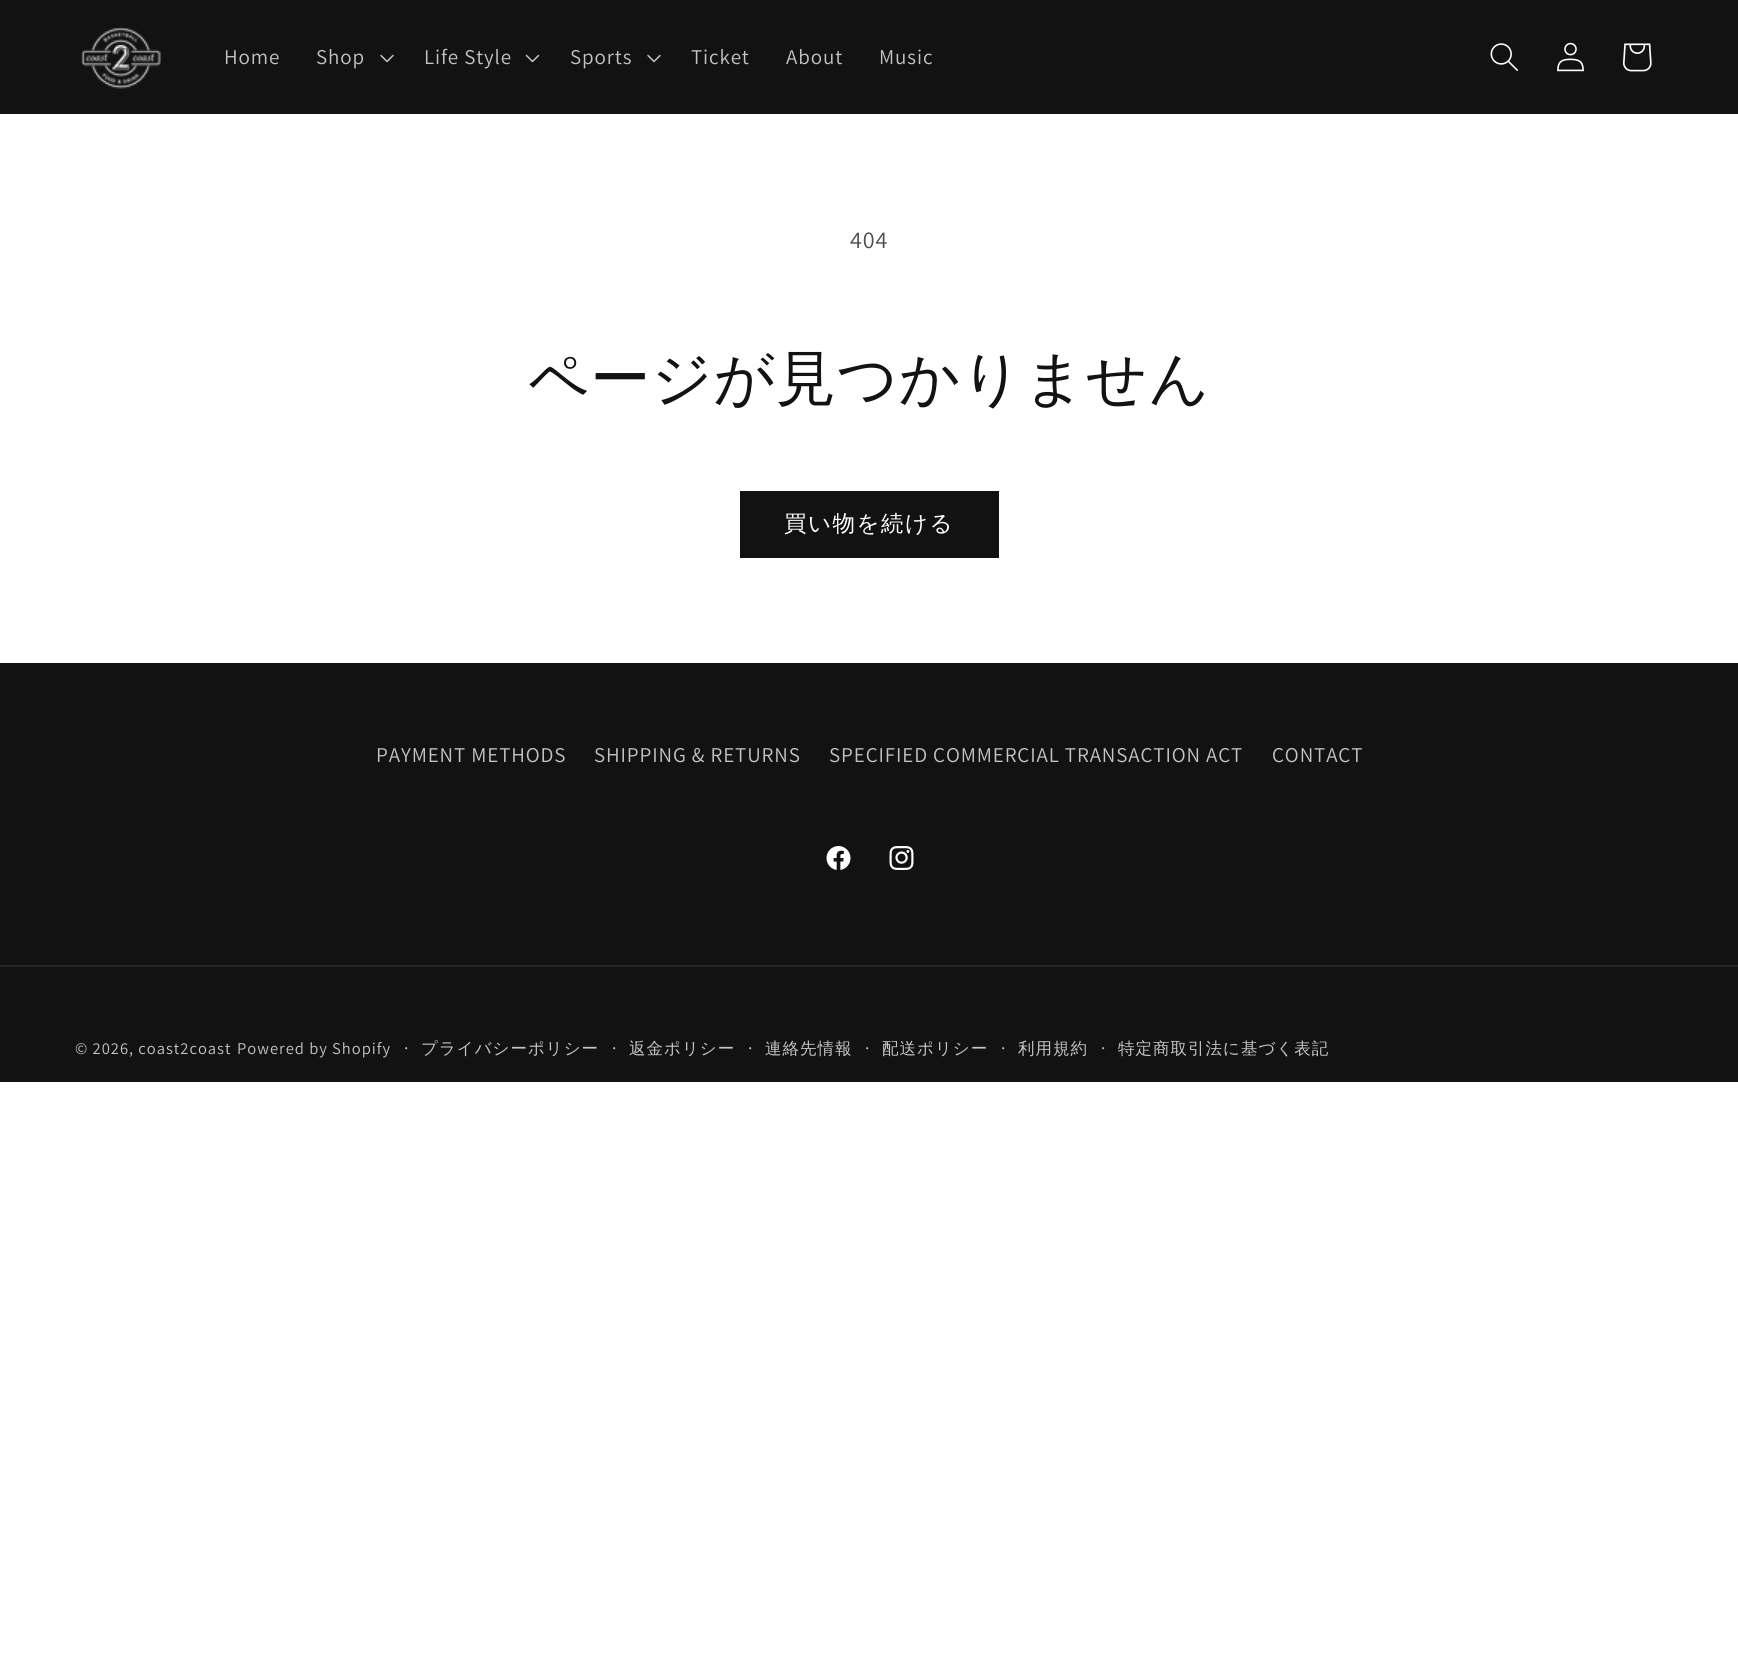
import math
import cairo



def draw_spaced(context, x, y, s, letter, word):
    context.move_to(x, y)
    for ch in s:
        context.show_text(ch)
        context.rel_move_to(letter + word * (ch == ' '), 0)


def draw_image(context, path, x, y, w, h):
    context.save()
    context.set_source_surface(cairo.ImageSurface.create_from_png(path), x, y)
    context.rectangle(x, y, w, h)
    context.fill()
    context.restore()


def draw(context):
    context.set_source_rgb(1, 1, 1)
    context.paint()
    context.set_source_rgb(18 / 255, 18 / 255, 18 / 255)
    context.rectangle(0, 0, 1738, 114)
    context.fill()
    draw_image(context, "images/1.png", 81, 27, 80, 62)
    draw_image(context, "images/2.png", 380, 54, 14, 9)
    draw_image(context, "images/3.png", 525, 54, 15, 9)
    draw_image(context, "images/2.png", 647, 54, 14, 9)
    draw_image(context, "images/4.png", 1490, 43, 28, 28)
    draw_image(context, "images/5.png", 1557, 42, 27, 30)
    draw_image(context, "images/6.png", 1623, 43, 29, 29)
    context.rectangle(740, 491, 259, 67)
    context.fill()
    context.rectangle(0, 663, 1738, 419)
    context.fill()
    draw_image(context, "images/7.png", 826, 846, 25, 24)
    draw_image(context, "images/8.png", 889, 846, 25, 24)
    context.set_source_rgb(37 / 255, 37 / 255, 37 / 255)
    context.rectangle(0, 965, 1738, 2)
    context.fill()
    context.select_font_face("Assistant")
    context.set_font_size(21)
    context.set_source_rgb(196 / 255, 196 / 255, 196 / 255)
    draw_spaced(context, 224, 64, "Home", 0.9, 0)
    draw_spaced(context, 316, 64, "Shop", 0.9, 0)
    draw_spaced(context, 424, 64, "Life Style", 0.9, 0)
    draw_spaced(context, 570, 64, "Sports", 0.9, 0)
    draw_spaced(context, 691, 64, "Ticket", 0.9, 0)
    draw_spaced(context, 786, 64, "About", 0.9, 0)
    draw_spaced(context, 879, 64, "Music", 0.9, 0)
    context.set_font_size(24)
    context.set_source_rgb(77 / 255, 77 / 255, 77 / 255)
    draw_spaced(context, 850, 248, "404", 0.9, 0)
    context.select_font_face("WenQuanYi Zen Hei Medium")
    context.set_font_size(60)
    context.set_source_rgb(18 / 255, 18 / 255, 18 / 255)
    draw_spaced(context, 528, 399, "ページが見つかりません", 0.9, 0)
    context.set_font_size(22.5)
    context.set_source_rgb(1, 1, 1)
    draw_spaced(context, 784, 531, "買い物を続ける", 1.5, 0)
    context.select_font_face("Assistant")
    context.set_font_size(21)
    context.set_source_rgb(196 / 255, 196 / 255, 196 / 255)
    draw_spaced(context, 376, 762, "PAYMENT METHODS", 0.9, 0)
    draw_spaced(context, 594, 762, "SHIPPING & RETURNS", 0.9, 0)
    draw_spaced(context, 829, 762, "SPECIFIED COMMERCIAL TRANSACTION ACT", 0.9, 0)
    draw_spaced(context, 1272, 762, "CONTACT", 0.9, 0)
    context.set_font_size(16.5)
    draw_spaced(context, 75, 1054, "© 2026, coast2coast", 1, 0)
    draw_spaced(context, 237, 1054, "Powered by Shopify", 1, 0)
    context.set_font_size(18)
    draw_spaced(context, 404, 1054, "·", 1, 0)
    context.select_font_face("WenQuanYi Zen Hei Medium")
    context.set_font_size(16.5)
    draw_spaced(context, 421, 1054, "プライバシーポリシー", 1, 0)
    context.select_font_face("Assistant")
    context.set_font_size(18)
    draw_spaced(context, 612, 1054, "·", 1, 0)
    context.select_font_face("WenQuanYi Zen Hei Medium")
    context.set_font_size(16.5)
    draw_spaced(context, 629, 1054, "返金ポリシー", 1, 0)
    context.select_font_face("Assistant")
    context.set_font_size(18)
    draw_spaced(context, 748, 1054, "·", 1, 0)
    context.select_font_face("WenQuanYi Zen Hei Medium")
    context.set_font_size(16.5)
    draw_spaced(context, 765, 1054, "連絡先情報", 1, 0)
    context.select_font_face("Assistant")
    context.set_font_size(18)
    draw_spaced(context, 865, 1054, "·", 1, 0)
    context.select_font_face("WenQuanYi Zen Hei Medium")
    context.set_font_size(16.5)
    draw_spaced(context, 882, 1054, "配送ポリシー", 1, 0)
    context.select_font_face("Assistant")
    context.set_font_size(18)
    draw_spaced(context, 1001, 1054, "·", 1, 0)
    context.select_font_face("WenQuanYi Zen Hei Medium")
    context.set_font_size(16.5)
    draw_spaced(context, 1018, 1054, "利用規約", 1, 0)
    context.select_font_face("Assistant")
    context.set_font_size(18)
    draw_spaced(context, 1101, 1054, "·", 1, 0)
    context.select_font_face("WenQuanYi Zen Hei Medium")
    context.set_font_size(16.5)
    draw_spaced(context, 1118, 1054, "特定商取引法に基づく表記", 1, 0)


surface = cairo.ImageSurface(cairo.Format.RGB24, 1738, 1661)
context = cairo.Context(surface)
options = cairo.FontOptions()
options.set_hint_metrics(cairo.HintMetrics.OFF)
options.set_hint_style(cairo.HintStyle.NONE)
context.set_font_options(options)
context.set_miter_limit(4)
draw(context)
surface.write_to_png("out.png")
